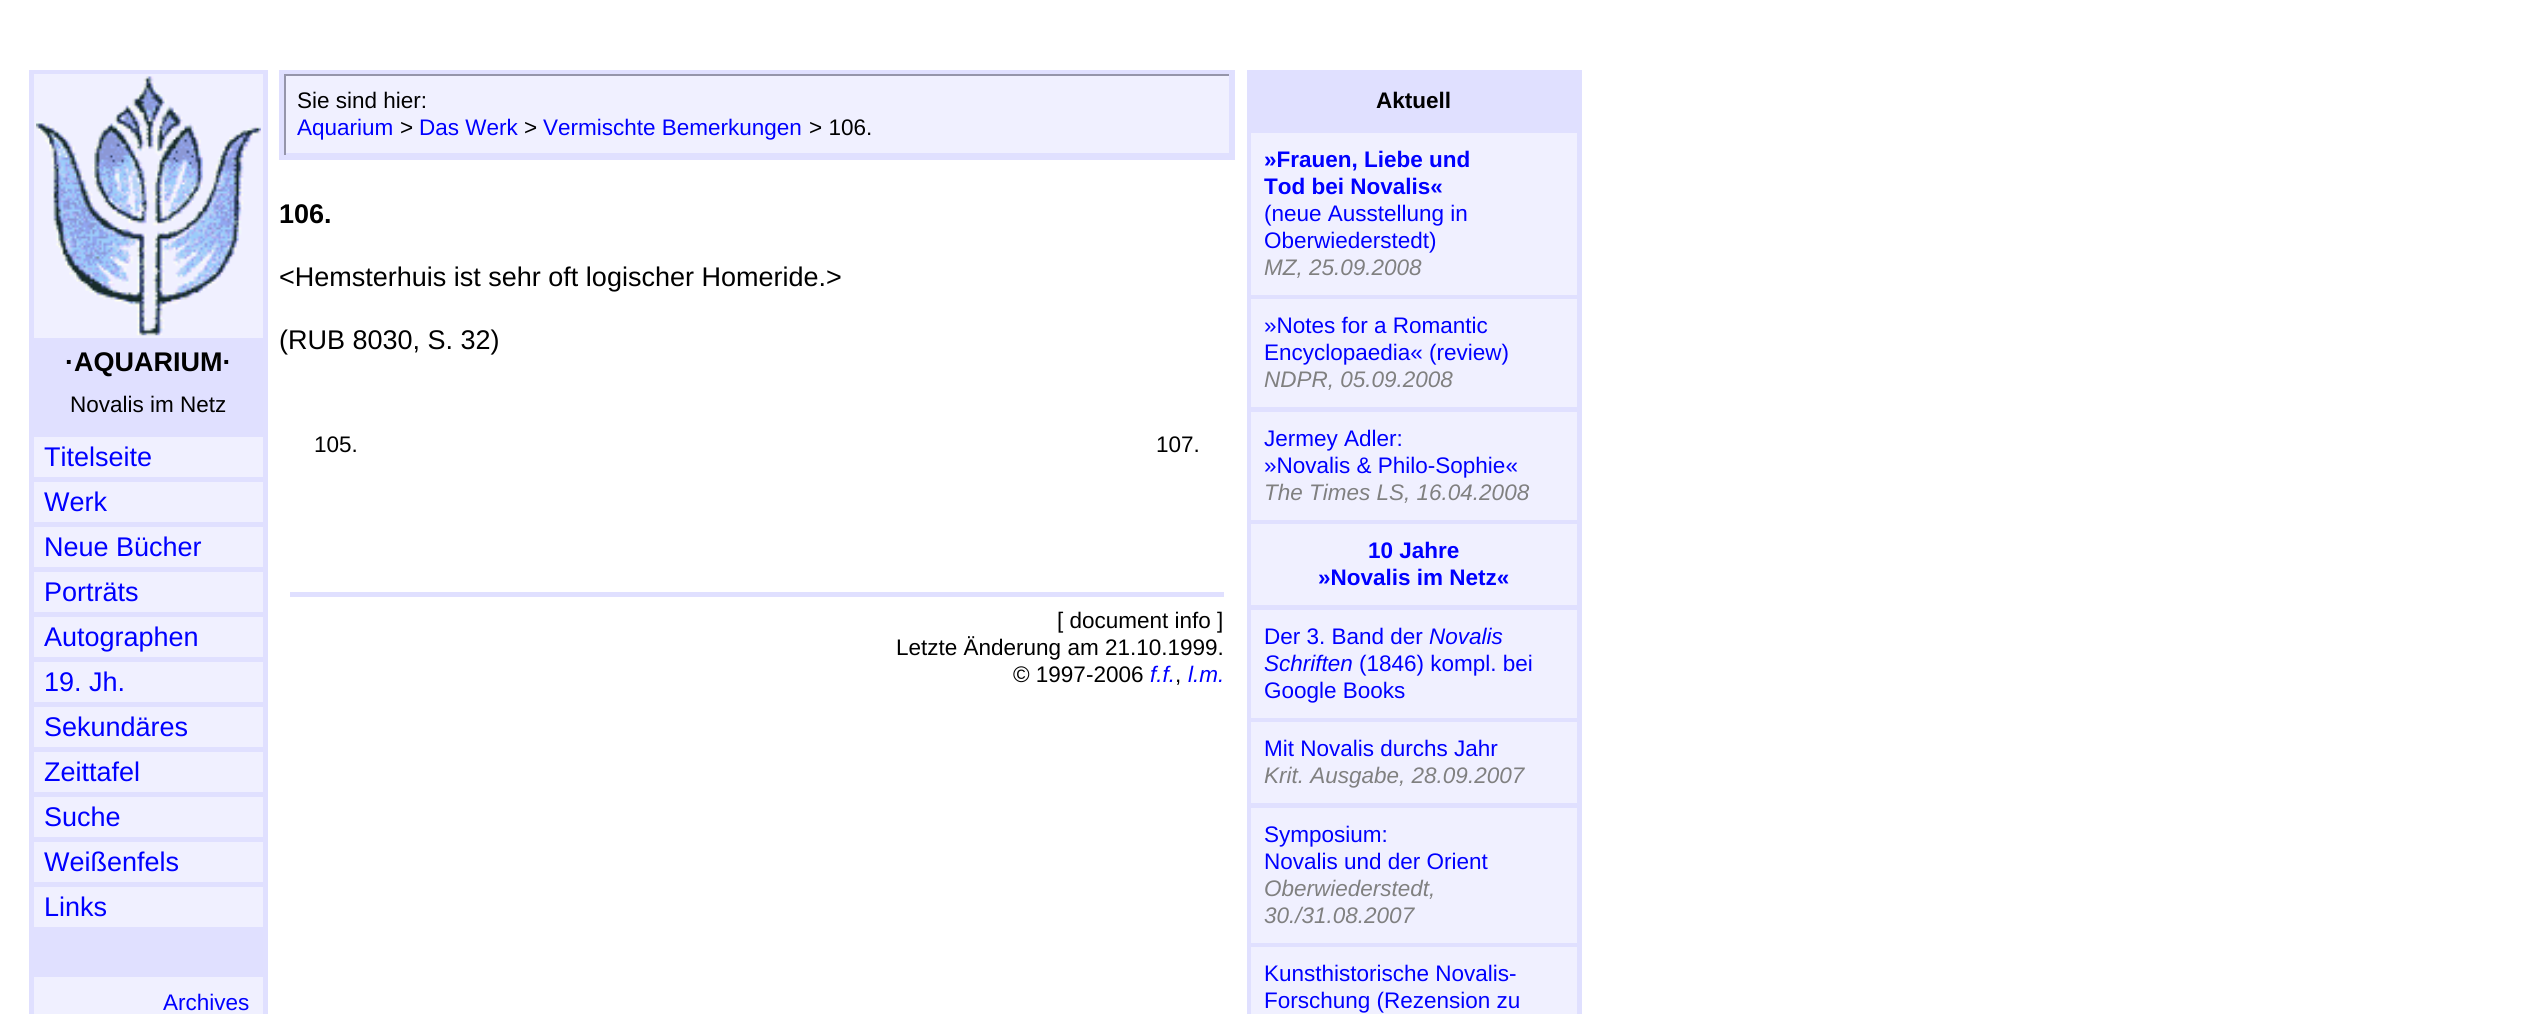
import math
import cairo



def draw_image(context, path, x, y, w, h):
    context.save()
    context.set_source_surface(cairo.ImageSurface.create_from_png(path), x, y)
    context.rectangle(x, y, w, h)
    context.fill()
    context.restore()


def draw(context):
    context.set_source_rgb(1, 1, 1)
    context.paint()
    context.set_source_rgb(224 / 255, 224 / 255, 1)
    context.rectangle(29, 70, 239, 944)
    context.fill()
    context.set_source_rgb(240 / 255, 240 / 255, 1)
    context.rectangle(34, 74, 229, 264)
    context.fill()
    draw_image(context, "images/1.png", 36, 76, 225, 260)
    context.rectangle(34, 437, 229, 40)
    context.fill()
    context.rectangle(34, 482, 229, 40)
    context.fill()
    context.rectangle(34, 527, 229, 40)
    context.fill()
    context.rectangle(34, 572, 229, 40)
    context.fill()
    context.rectangle(34, 617, 229, 40)
    context.fill()
    context.rectangle(34, 662, 229, 40)
    context.fill()
    context.rectangle(34, 707, 229, 40)
    context.fill()
    context.rectangle(34, 752, 229, 40)
    context.fill()
    context.rectangle(34, 797, 229, 40)
    context.fill()
    context.rectangle(34, 842, 229, 40)
    context.fill()
    context.rectangle(34, 887, 229, 40)
    context.fill()
    context.rectangle(34, 977, 229, 37)
    context.fill()
    context.rectangle(281.5, 72.5, 951, 85)
    context.set_source_rgb(224 / 255, 224 / 255, 1)
    context.set_line_width(5)
    context.stroke()
    context.set_source_rgb(240 / 255, 240 / 255, 1)
    context.rectangle(286, 76, 943, 77)
    context.fill()
    context.set_source_rgb(149 / 255, 149 / 255, 170 / 255)
    context.rectangle(284, 74, 947, 2)
    context.fill()
    context.set_source_rgb(224 / 255, 224 / 255, 1)
    context.rectangle(1229, 74, 2, 81)
    context.fill()
    context.rectangle(284, 153, 947, 2)
    context.fill()
    context.set_source_rgb(149 / 255, 149 / 255, 170 / 255)
    context.rectangle(284, 74, 2, 81)
    context.fill()
    context.set_source_rgb(224 / 255, 224 / 255, 1)
    context.rectangle(290, 592, 934, 5)
    context.fill()
    context.rectangle(1247, 70, 335, 944)
    context.fill()
    context.set_source_rgb(240 / 255, 240 / 255, 1)
    context.rectangle(1251, 133, 326, 162)
    context.fill()
    context.rectangle(1251, 299, 326, 108)
    context.fill()
    context.rectangle(1251, 412, 326, 108)
    context.fill()
    context.rectangle(1251, 524, 326, 81)
    context.fill()
    context.rectangle(1251, 610, 326, 108)
    context.fill()
    context.rectangle(1251, 722, 326, 81)
    context.fill()
    context.rectangle(1251, 808, 326, 135)
    context.fill()
    context.rectangle(1251, 947, 326, 67)
    context.fill()
    context.select_font_face("Liberation Sans", cairo.FontSlant.NORMAL, cairo.FontWeight.BOLD)
    context.set_font_size(27)
    context.set_source_rgb(0, 0, 0)
    context.move_to(65, 371)
    context.show_text("·AQUARIUM·")
    context.select_font_face("Liberation Sans")
    context.set_font_size(22.5)
    context.move_to(70, 412)
    context.show_text("Novalis im Netz")
    context.set_font_size(27)
    context.set_source_rgb(0, 0, 1)
    context.move_to(44, 466)
    context.show_text("Titelseite")
    context.move_to(44, 511)
    context.show_text("Werk")
    context.move_to(44, 556)
    context.show_text("Neue Bücher")
    context.move_to(44, 601)
    context.show_text("Porträts")
    context.move_to(44, 646)
    context.show_text("Autographen")
    context.move_to(44, 691)
    context.show_text("19. Jh.")
    context.move_to(44, 736)
    context.show_text("Sekundäres")
    context.move_to(44, 781)
    context.show_text("Zeittafel")
    context.move_to(44, 826)
    context.show_text("Suche")
    context.move_to(44, 871)
    context.show_text("Weißenfels")
    context.move_to(44, 916)
    context.show_text("Links")
    context.set_font_size(22.5)
    context.move_to(163, 1010)
    context.show_text("Archives")
    context.set_source_rgb(0, 0, 0)
    context.move_to(297, 108)
    context.show_text("Sie sind hier:")
    context.set_source_rgb(0, 0, 1)
    context.move_to(297, 135)
    context.show_text("Aquarium")
    context.set_source_rgb(0, 0, 0)
    context.move_to(400, 135)
    context.show_text(">")
    context.set_source_rgb(0, 0, 1)
    context.move_to(419, 135)
    context.show_text("Das Werk")
    context.set_source_rgb(0, 0, 0)
    context.move_to(524, 135)
    context.show_text(">")
    context.set_source_rgb(0, 0, 1)
    context.move_to(543, 135)
    context.show_text("Vermischte Bemerkungen")
    context.set_source_rgb(0, 0, 0)
    context.move_to(809, 135)
    context.show_text("> 106.")
    context.select_font_face("Liberation Sans", cairo.FontSlant.NORMAL, cairo.FontWeight.BOLD)
    context.set_font_size(27)
    context.move_to(279, 223)
    context.show_text("106.")
    context.select_font_face("Liberation Sans")
    context.move_to(279, 286)
    context.show_text("<Hemsterhuis ist sehr oft logischer Homeride.>")
    context.move_to(279, 349)
    context.show_text("(RUB 8030, S. 32)")
    context.set_font_size(22.5)
    context.move_to(314, 452)
    context.show_text("105.")
    context.move_to(1156, 452)
    context.show_text("107.")
    context.move_to(1057, 628)
    context.show_text("[ document info ]")
    context.move_to(896, 655)
    context.show_text("Letzte Änderung am 21.10.1999.")
    context.move_to(1013, 682)
    context.show_text("© 1997-2006")
    context.select_font_face("Liberation Sans", cairo.FontSlant.ITALIC)
    context.set_source_rgb(0, 0, 1)
    context.move_to(1150, 682)
    context.show_text("f.f.")
    context.select_font_face("Liberation Sans")
    context.set_source_rgb(0, 0, 0)
    context.move_to(1175, 682)
    context.show_text(",")
    context.select_font_face("Liberation Sans", cairo.FontSlant.ITALIC)
    context.set_source_rgb(0, 0, 1)
    context.move_to(1188, 682)
    context.show_text("l.m.")
    context.select_font_face("Liberation Sans", cairo.FontSlant.NORMAL, cairo.FontWeight.BOLD)
    context.set_source_rgb(0, 0, 0)
    context.move_to(1376, 108)
    context.show_text("Aktuell")
    context.set_source_rgb(0, 0, 1)
    context.move_to(1264, 167)
    context.show_text("»Frauen, Liebe und")
    context.move_to(1264, 194)
    context.show_text("Tod bei Novalis«")
    context.select_font_face("Liberation Sans")
    context.move_to(1264, 221)
    context.show_text("(neue Ausstellung in")
    context.move_to(1264, 248)
    context.show_text("Oberwiederstedt)")
    context.select_font_face("Liberation Sans", cairo.FontSlant.ITALIC)
    context.set_source_rgb(128 / 255, 128 / 255, 128 / 255)
    context.move_to(1264, 275)
    context.show_text("MZ, 25.09.2008")
    context.select_font_face("Liberation Sans")
    context.set_source_rgb(0, 0, 1)
    context.move_to(1264, 333)
    context.show_text("»Notes for a Romantic")
    context.move_to(1264, 360)
    context.show_text("Encyclopaedia« (review)")
    context.select_font_face("Liberation Sans", cairo.FontSlant.ITALIC)
    context.set_source_rgb(128 / 255, 128 / 255, 128 / 255)
    context.move_to(1264, 387)
    context.show_text("NDPR, 05.09.2008")
    context.select_font_face("Liberation Sans")
    context.set_source_rgb(0, 0, 1)
    context.move_to(1264, 446)
    context.show_text("Jermey Adler:")
    context.move_to(1264, 473)
    context.show_text("»Novalis & Philo-Sophie«")
    context.select_font_face("Liberation Sans", cairo.FontSlant.ITALIC)
    context.set_source_rgb(128 / 255, 128 / 255, 128 / 255)
    context.move_to(1264, 500)
    context.show_text("The Times LS, 16.04.2008")
    context.select_font_face("Liberation Sans", cairo.FontSlant.NORMAL, cairo.FontWeight.BOLD)
    context.set_source_rgb(0, 0, 1)
    context.move_to(1368, 558)
    context.show_text("10 Jahre")
    context.move_to(1318, 585)
    context.show_text("»Novalis im Netz«")
    context.select_font_face("Liberation Sans")
    context.move_to(1264, 644)
    context.show_text("Der 3. Band der")
    context.select_font_face("Liberation Sans", cairo.FontSlant.ITALIC)
    context.move_to(1429, 644)
    context.show_text("Novalis")
    context.move_to(1264, 671)
    context.show_text("Schriften")
    context.select_font_face("Liberation Sans")
    context.move_to(1359, 671)
    context.show_text("(1846) kompl. bei")
    context.move_to(1264, 698)
    context.show_text("Google Books")
    context.move_to(1264, 756)
    context.show_text("Mit Novalis durchs Jahr")
    context.select_font_face("Liberation Sans", cairo.FontSlant.ITALIC)
    context.set_source_rgb(128 / 255, 128 / 255, 128 / 255)
    context.move_to(1264, 783)
    context.show_text("Krit. Ausgabe, 28.09.2007")
    context.select_font_face("Liberation Sans")
    context.set_source_rgb(0, 0, 1)
    context.move_to(1264, 842)
    context.show_text("Symposium:")
    context.move_to(1264, 869)
    context.show_text("Novalis und der Orient")
    context.select_font_face("Liberation Sans", cairo.FontSlant.ITALIC)
    context.set_source_rgb(128 / 255, 128 / 255, 128 / 255)
    context.move_to(1264, 896)
    context.show_text("Oberwiederstedt,")
    context.move_to(1264, 923)
    context.show_text("30./31.08.2007")
    context.select_font_face("Liberation Sans")
    context.set_source_rgb(0, 0, 1)
    context.move_to(1264, 981)
    context.show_text("Kunsthistorische Novalis-")
    context.move_to(1264, 1008)
    context.show_text("Forschung (Rezension zu")


surface = cairo.ImageSurface(cairo.Format.RGB24, 2548, 1014)
context = cairo.Context(surface)
options = cairo.FontOptions()
options.set_hint_metrics(cairo.HintMetrics.OFF)
options.set_hint_style(cairo.HintStyle.NONE)
context.set_font_options(options)
context.set_miter_limit(4)
draw(context)
surface.write_to_png("out.png")
